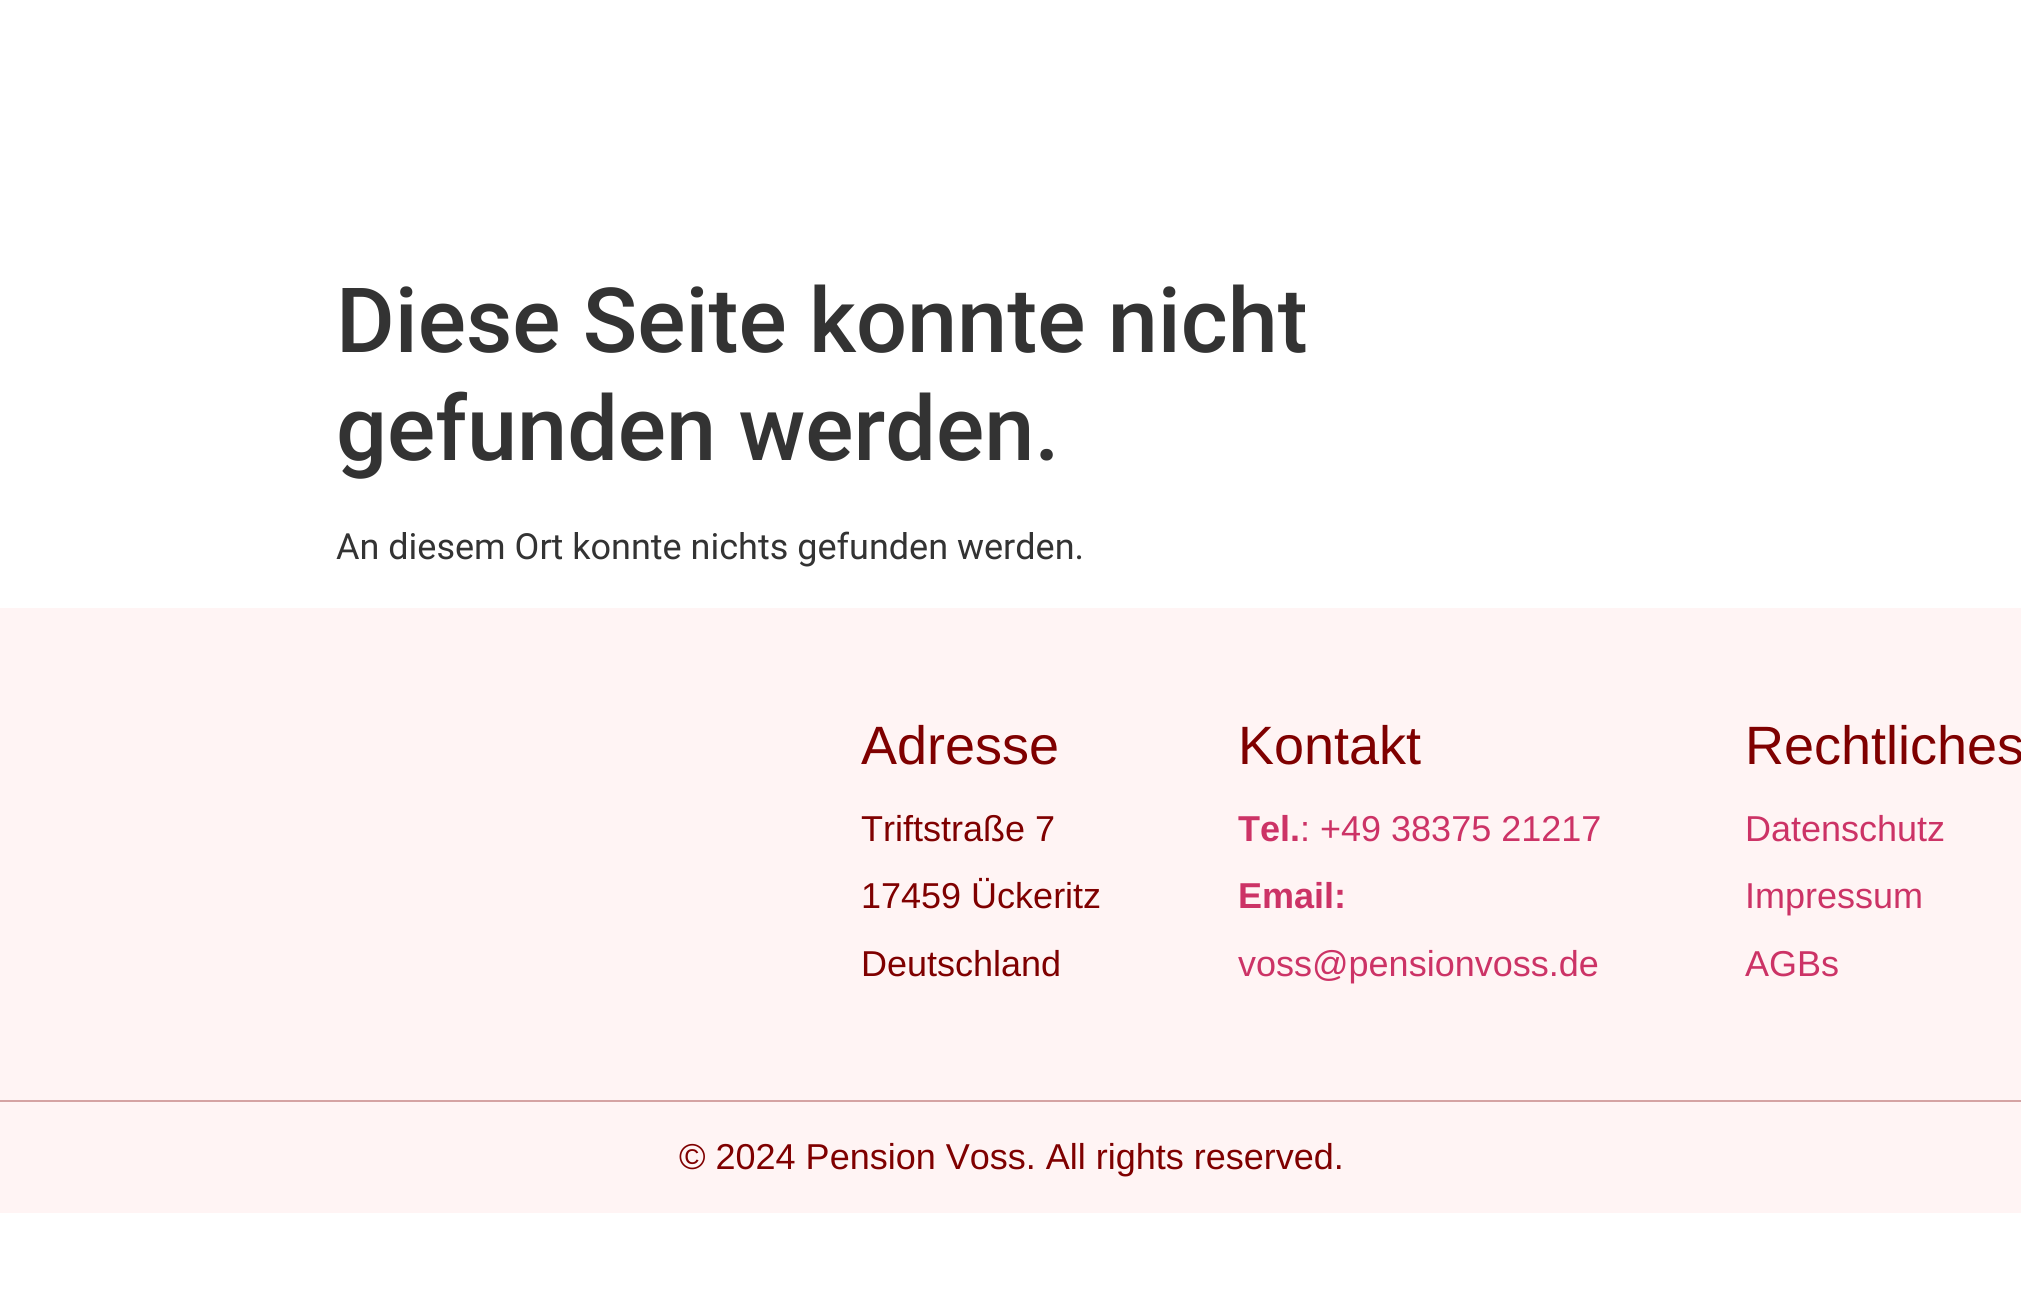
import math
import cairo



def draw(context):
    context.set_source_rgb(1, 1, 1)
    context.paint()
    context.set_source_rgb(1, 244 / 255, 244 / 255)
    context.rectangle(0, 608, 2021, 605)
    context.fill()
    context.set_source_rgb(213 / 255, 163 / 255, 163 / 255)
    context.rectangle(0, 1100, 2021, 2)
    context.fill()
    context.select_font_face("Roboto Medium")
    context.set_font_size(90)
    context.set_source_rgb(51 / 255, 51 / 255, 51 / 255)
    context.move_to(336, 352)
    context.show_text("Diese Seite konnte nicht")
    context.move_to(336, 460)
    context.show_text("gefunden werden.")
    context.select_font_face("Roboto")
    context.set_font_size(36)
    context.move_to(336, 559)
    context.show_text("An diesem Ort konnte nichts gefunden werden.")
    context.select_font_face("Liberation Sans")
    context.set_font_size(54)
    context.set_source_rgb(127 / 255, 0, 0)
    context.move_to(861, 764)
    context.show_text("Adresse")
    context.set_font_size(36)
    context.move_to(861, 841)
    context.show_text("Triftstraße 7")
    context.move_to(861, 908)
    context.show_text("17459 Ückeritz")
    context.move_to(861, 976)
    context.show_text("Deutschland")
    context.set_font_size(54)
    context.move_to(1238, 764)
    context.show_text("Kontakt")
    context.select_font_face("Liberation Sans", cairo.FontSlant.NORMAL, cairo.FontWeight.BOLD)
    context.set_font_size(36)
    context.set_source_rgb(204 / 255, 51 / 255, 102 / 255)
    context.move_to(1238, 841)
    context.show_text("Tel.")
    context.select_font_face("Liberation Sans")
    context.move_to(1300, 841)
    context.show_text(": +49 38375 21217")
    context.select_font_face("Liberation Sans", cairo.FontSlant.NORMAL, cairo.FontWeight.BOLD)
    context.move_to(1238, 908)
    context.show_text("Email:")
    context.select_font_face("Liberation Sans")
    context.move_to(1238, 976)
    context.show_text("voss@pensionvoss.de")
    context.set_font_size(54)
    context.set_source_rgb(127 / 255, 0, 0)
    context.move_to(1745, 764)
    context.show_text("Rechtliches")
    context.set_font_size(36)
    context.set_source_rgb(204 / 255, 51 / 255, 102 / 255)
    context.move_to(1745, 841)
    context.show_text("Datenschutz")
    context.move_to(1745, 908)
    context.show_text("Impressum")
    context.move_to(1745, 976)
    context.show_text("AGBs")
    context.set_source_rgb(127 / 255, 0, 0)
    context.move_to(679, 1169)
    context.show_text("© 2024 Pension Voss. All rights reserved.")


surface = cairo.ImageSurface(cairo.Format.RGB24, 2021, 1303)
context = cairo.Context(surface)
options = cairo.FontOptions()
options.set_hint_metrics(cairo.HintMetrics.OFF)
options.set_hint_style(cairo.HintStyle.NONE)
context.set_font_options(options)
context.set_miter_limit(4)
draw(context)
surface.write_to_png("out.png")
